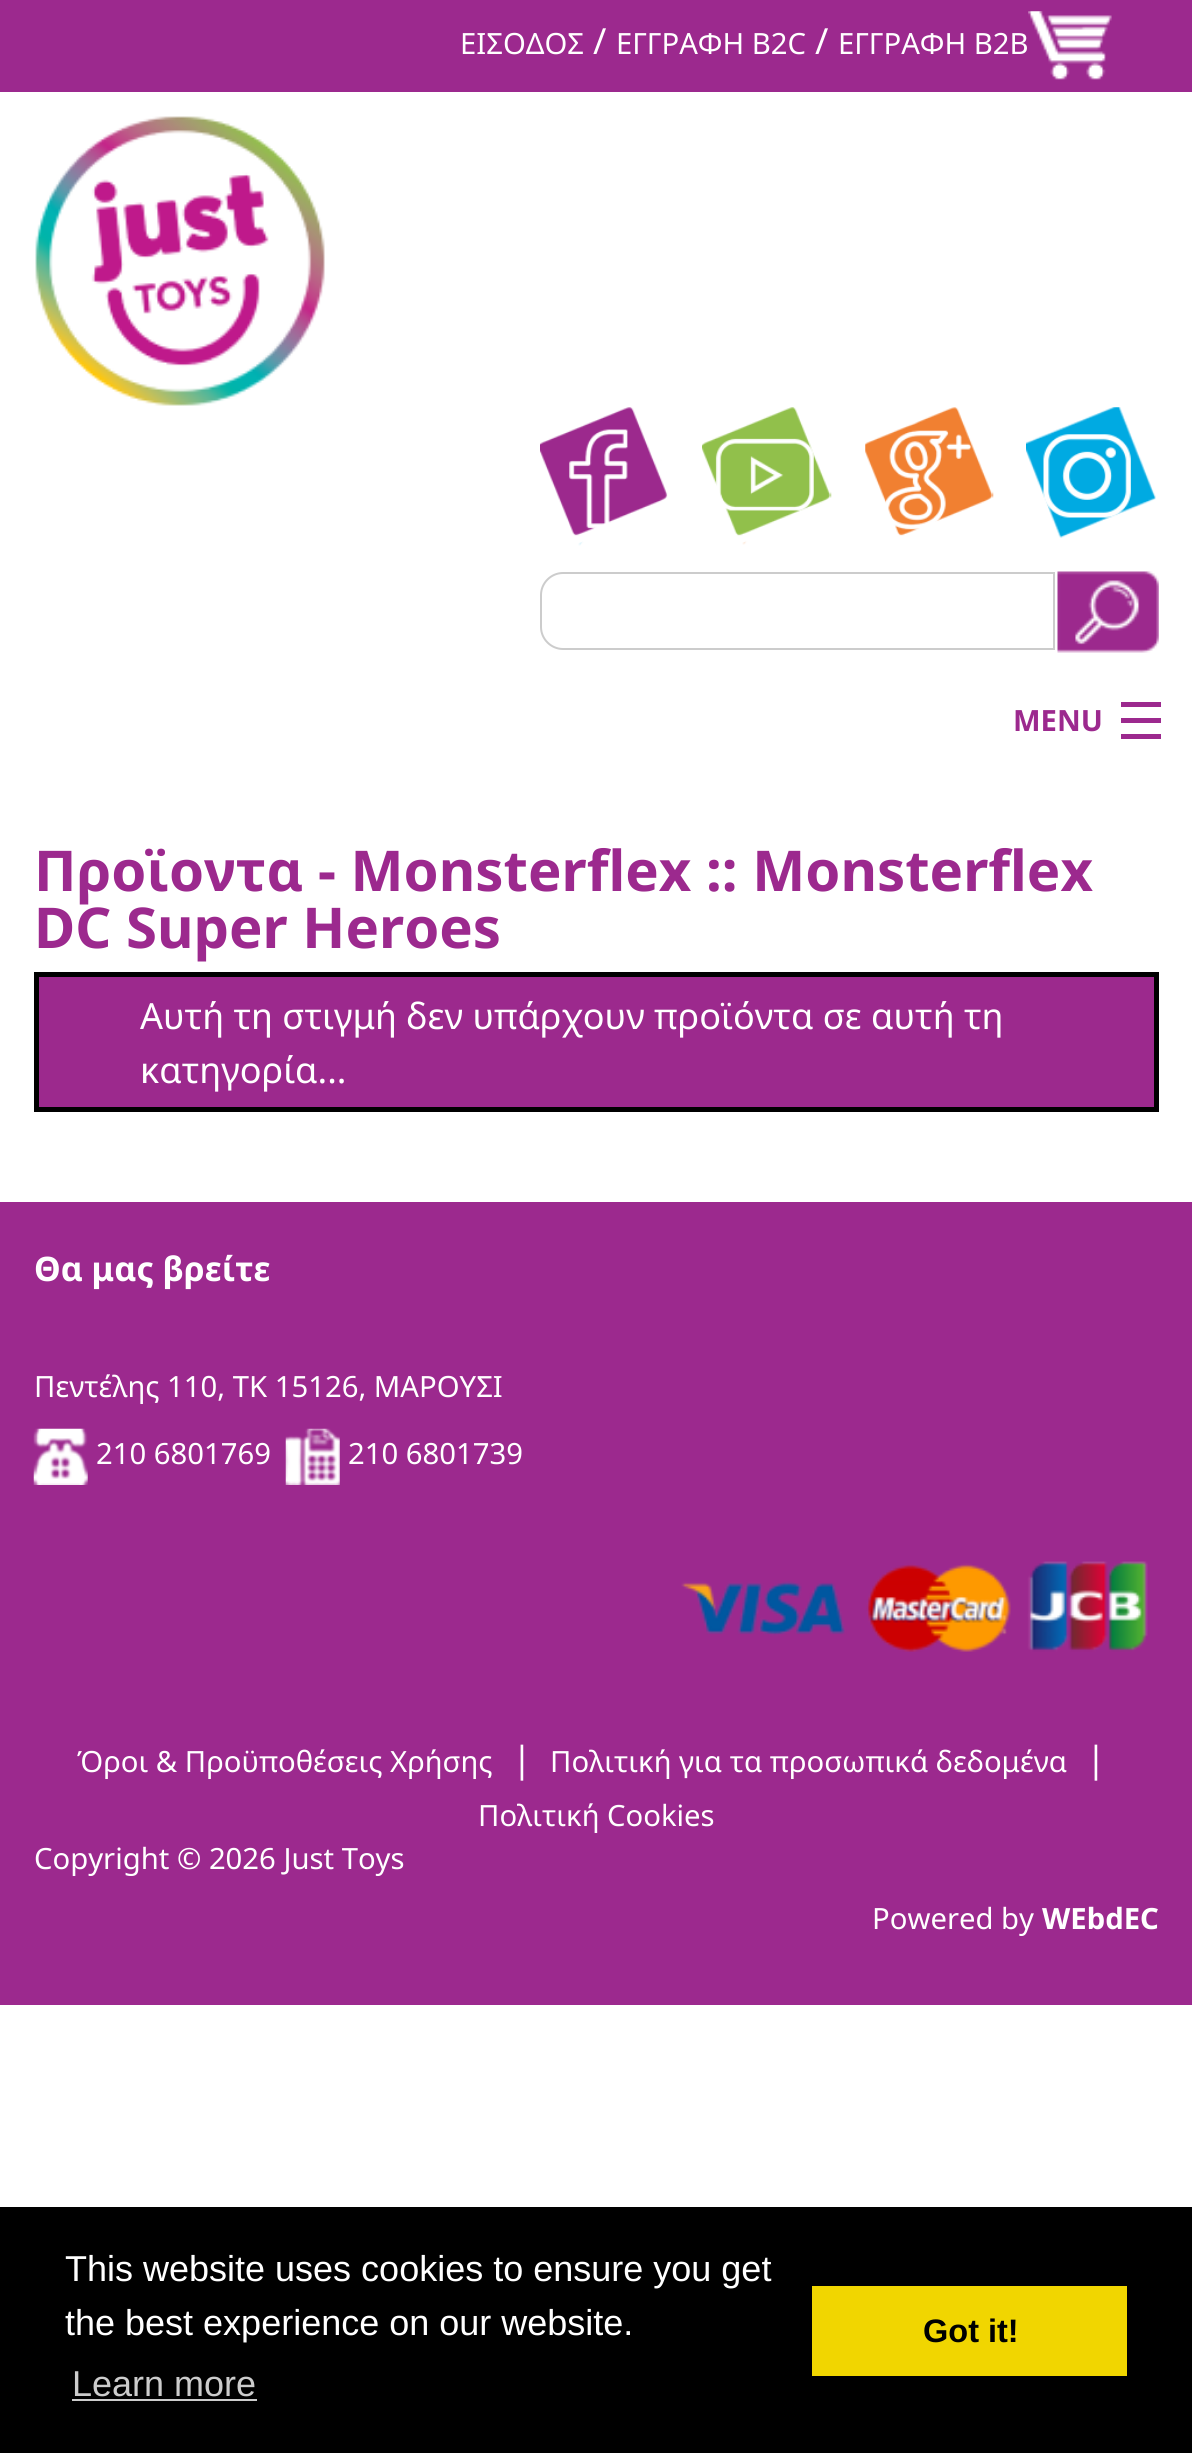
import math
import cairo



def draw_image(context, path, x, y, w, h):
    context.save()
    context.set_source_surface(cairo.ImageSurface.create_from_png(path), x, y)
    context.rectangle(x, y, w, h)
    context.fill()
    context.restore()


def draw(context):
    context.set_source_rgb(1, 1, 1)
    context.paint()
    context.set_source_rgb(156 / 255, 41 / 255, 142 / 255)
    context.rectangle(0, 0, 1192, 92)
    context.fill()
    draw_image(context, "images/1.png", 1028, 11, 84, 69)
    draw_image(context, "images/2.png", 35, 116, 290, 290)
    draw_image(context, "images/3.png", 540, 407, 128, 139)
    draw_image(context, "images/4.png", 702, 407, 130, 138)
    draw_image(context, "images/5.png", 865, 407, 129, 129)
    draw_image(context, "images/6.png", 1026, 407, 130, 131)
    context.new_path()
    context.move_to(563, 573)
    context.line_to(1054, 573)
    context.line_to(1054, 649)
    context.line_to(563, 649)
    context.curve_to(551, 649, 541, 639, 541, 627)
    context.line_to(541, 595)
    context.curve_to(541, 583, 551, 573, 563, 573)
    context.close_path()
    context.set_source_rgb(204 / 255, 204 / 255, 204 / 255)
    context.stroke()
    draw_image(context, "images/7.png", 1057, 571, 102, 82)
    context.set_source_rgb(156 / 255, 41 / 255, 142 / 255)
    context.rectangle(1121, 734, 40, 5)
    context.fill()
    context.rectangle(1121, 718, 40, 5)
    context.fill()
    context.rectangle(1121, 702, 40, 5)
    context.fill()
    context.set_source_rgb(156 / 255, 41 / 255, 141 / 255)
    context.rectangle(36.5, 974.5, 1120, 135)
    context.fill_preserve()
    context.set_source_rgb(0, 0, 0)
    context.set_line_width(5)
    context.stroke()
    context.set_source_rgb(156 / 255, 41 / 255, 142 / 255)
    context.rectangle(0, 1202, 1192, 803)
    context.fill()
    draw_image(context, "images/8.png", 33, 1428, 55, 57)
    draw_image(context, "images/9.png", 285, 1428, 55, 57)
    draw_image(context, "images/10.png", 681, 1561, 467, 91)
    context.set_source_rgb(0, 0, 0)
    context.rectangle(0, 2207, 1192, 246)
    context.fill()
    context.set_source_rgb(204 / 255, 204 / 255, 204 / 255)
    context.rectangle(72, 2399, 185, 2)
    context.fill()
    context.set_source_rgb(241 / 255, 214 / 255, 0)
    context.rectangle(812, 2286, 315, 90)
    context.fill()
    context.select_font_face("Noto Sans")
    context.set_font_size(29.25)
    context.set_source_rgb(1, 1, 1)
    context.move_to(460, 54)
    context.show_text("ΕΙΣΟΔΟΣ")
    context.set_font_size(36)
    context.move_to(593, 54)
    context.show_text("/")
    context.set_font_size(29.25)
    context.move_to(616, 54)
    context.show_text("ΕΓΓΡΑΦΗ Β2C")
    context.set_font_size(36)
    context.move_to(815, 54)
    context.show_text("/")
    context.set_font_size(29.25)
    context.move_to(838, 54)
    context.show_text("ΕΓΓΡΑΦΗ Β2Β")
    context.select_font_face("Noto Sans", cairo.FontSlant.NORMAL, cairo.FontWeight.BOLD)
    context.set_source_rgb(156 / 255, 41 / 255, 142 / 255)
    context.move_to(1013, 731)
    context.show_text("MENU")
    context.set_font_size(56.25)
    context.move_to(34, 891)
    context.show_text("Προϊοντα - Monsterflex :: Monsterflex")
    context.move_to(34, 948)
    context.show_text("DC Super Heroes")
    context.select_font_face("Noto Sans")
    context.set_font_size(36)
    context.set_source_rgb(1, 1, 1)
    context.move_to(140, 1029)
    context.show_text("Αυτή τη στιγμή δεν υπάρχουν προϊόντα σε αυτή τη")
    context.move_to(140, 1083)
    context.show_text("κατηγορία...")
    context.select_font_face("Noto Sans", cairo.FontSlant.NORMAL, cairo.FontWeight.BOLD)
    context.set_font_size(33.75)
    context.move_to(34, 1281)
    context.show_text("Θα μας βρείτε")
    context.select_font_face("Noto Sans")
    context.set_font_size(29.25)
    context.move_to(34, 1397)
    context.show_text("Πεντέλης 110, ΤΚ 15126, ΜΑΡΟΥΣΙ")
    context.move_to(96, 1464)
    context.show_text("210 6801769")
    context.move_to(348, 1464)
    context.show_text("210 6801739")
    context.move_to(77, 1772)
    context.show_text("Όροι & Προϋποθέσεις Χρήσης")
    context.set_font_size(36)
    context.move_to(512, 1772)
    context.show_text("|")
    context.set_font_size(29.25)
    context.move_to(550, 1772)
    context.show_text("Πολιτική για τα προσωπικά δεδομένα")
    context.set_font_size(36)
    context.move_to(1086, 1772)
    context.show_text("|")
    context.set_font_size(29.25)
    context.move_to(478, 1826)
    context.show_text("Πολιτική Cookies")
    context.move_to(34, 1869)
    context.show_text("Copyright © 2026 Just Toys")
    context.move_to(872, 1929)
    context.show_text("Powered by")
    context.select_font_face("Noto Sans", cairo.FontSlant.NORMAL, cairo.FontWeight.BOLD)
    context.move_to(1042, 1929)
    context.show_text("WEbdEC")
    context.select_font_face("Liberation Sans")
    context.set_font_size(36)
    context.move_to(65, 2281)
    context.show_text("This website uses cookies to ensure you get")
    context.move_to(65, 2335)
    context.show_text("the best experience on our website.")
    context.set_source_rgb(204 / 255, 204 / 255, 204 / 255)
    context.move_to(72, 2396)
    context.show_text("Learn more")
    context.select_font_face("Liberation Sans", cairo.FontSlant.NORMAL, cairo.FontWeight.BOLD)
    context.set_font_size(32.5)
    context.set_source_rgb(0, 0, 0)
    context.move_to(923, 2342)
    context.show_text("Got it!")


surface = cairo.ImageSurface(cairo.Format.RGB24, 1192, 2453)
context = cairo.Context(surface)
options = cairo.FontOptions()
options.set_hint_metrics(cairo.HintMetrics.OFF)
options.set_hint_style(cairo.HintStyle.NONE)
context.set_font_options(options)
context.set_miter_limit(4)
draw(context)
surface.write_to_png("out.png")
